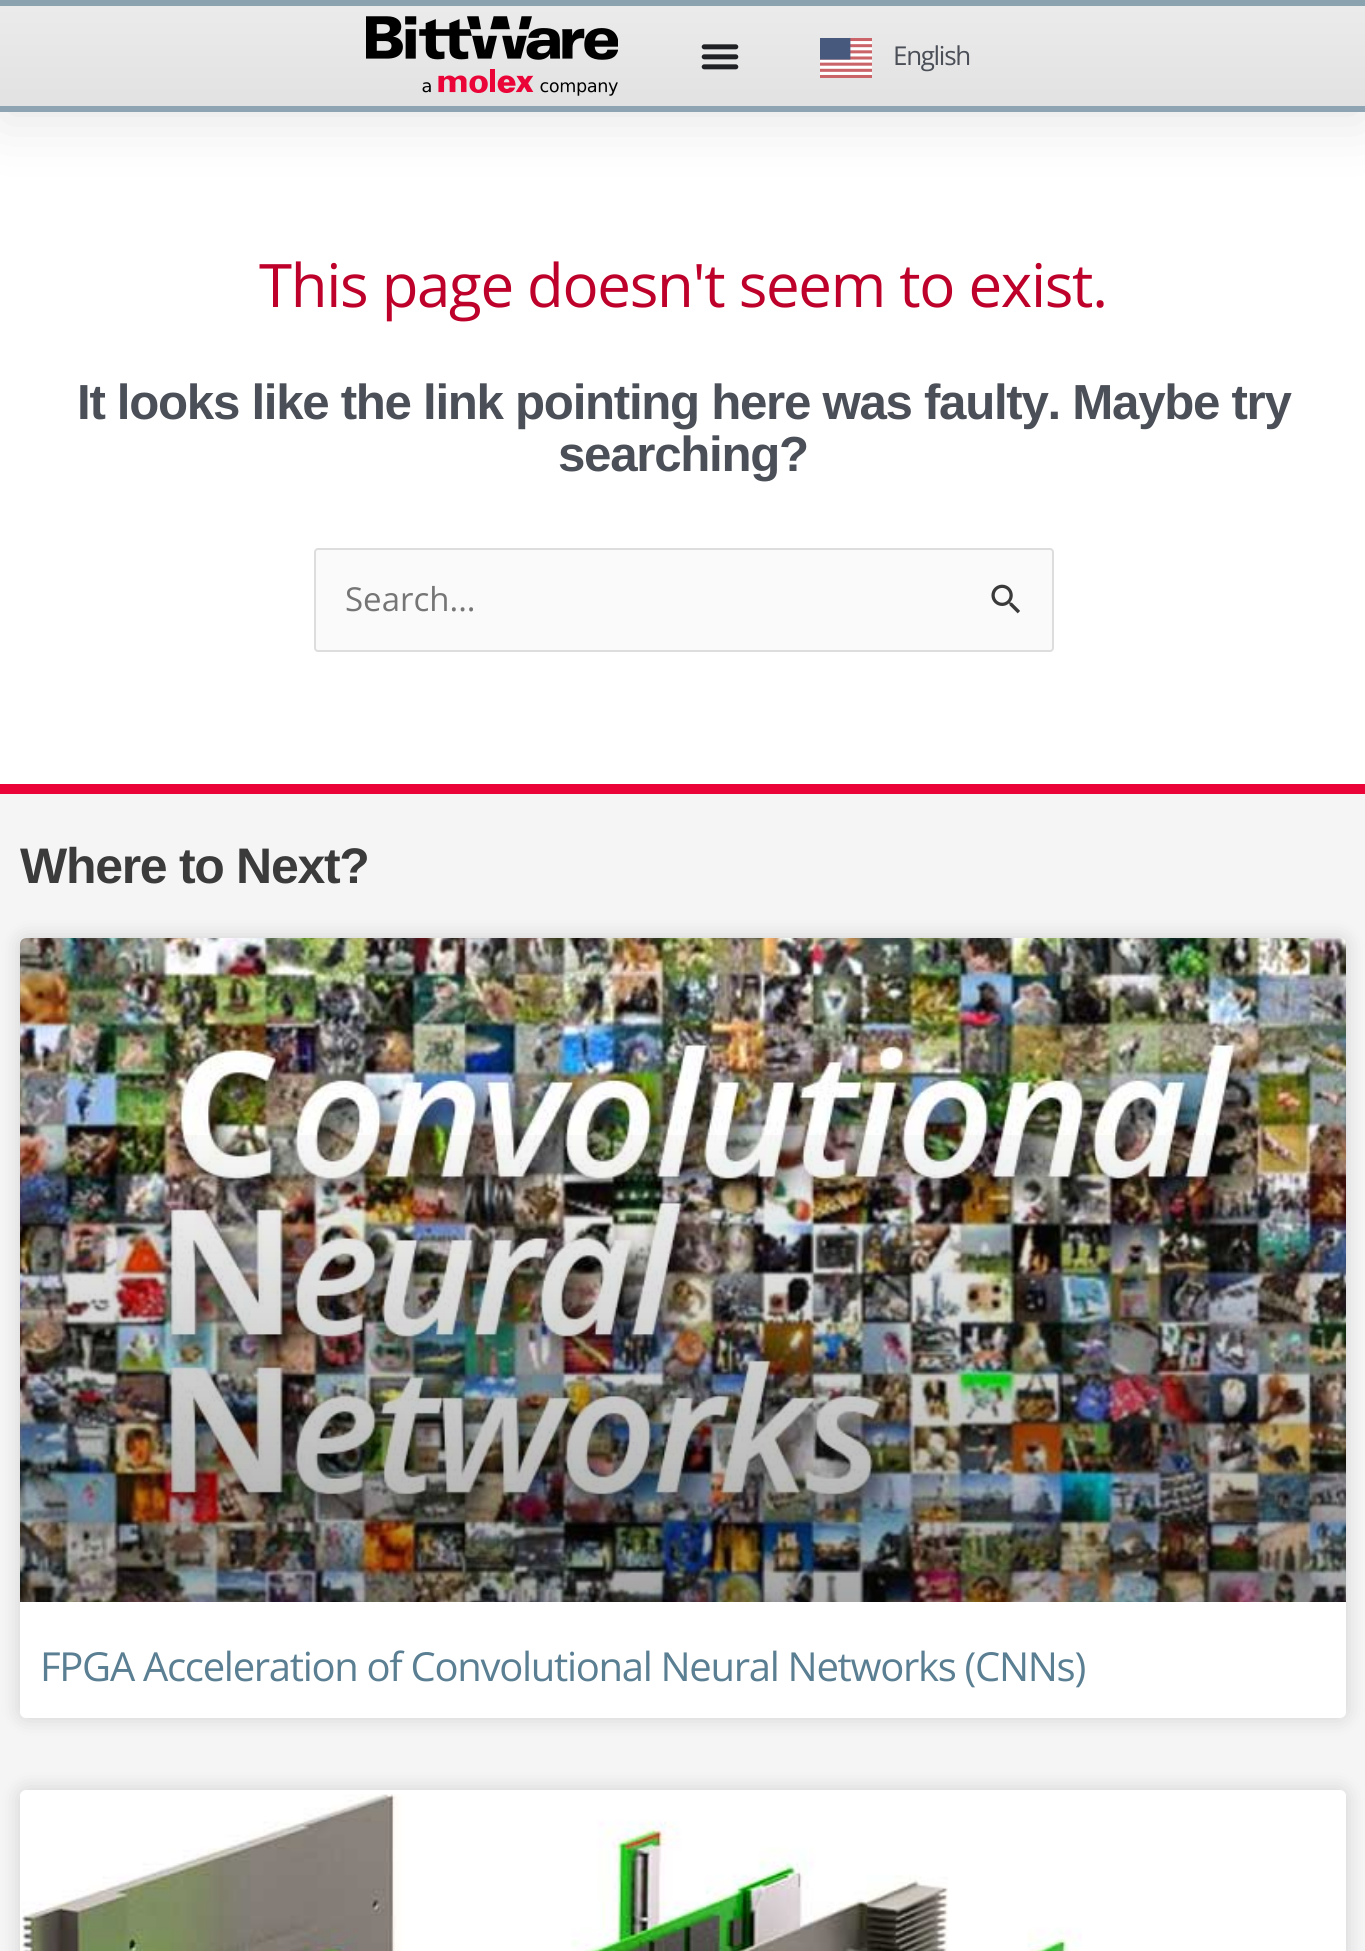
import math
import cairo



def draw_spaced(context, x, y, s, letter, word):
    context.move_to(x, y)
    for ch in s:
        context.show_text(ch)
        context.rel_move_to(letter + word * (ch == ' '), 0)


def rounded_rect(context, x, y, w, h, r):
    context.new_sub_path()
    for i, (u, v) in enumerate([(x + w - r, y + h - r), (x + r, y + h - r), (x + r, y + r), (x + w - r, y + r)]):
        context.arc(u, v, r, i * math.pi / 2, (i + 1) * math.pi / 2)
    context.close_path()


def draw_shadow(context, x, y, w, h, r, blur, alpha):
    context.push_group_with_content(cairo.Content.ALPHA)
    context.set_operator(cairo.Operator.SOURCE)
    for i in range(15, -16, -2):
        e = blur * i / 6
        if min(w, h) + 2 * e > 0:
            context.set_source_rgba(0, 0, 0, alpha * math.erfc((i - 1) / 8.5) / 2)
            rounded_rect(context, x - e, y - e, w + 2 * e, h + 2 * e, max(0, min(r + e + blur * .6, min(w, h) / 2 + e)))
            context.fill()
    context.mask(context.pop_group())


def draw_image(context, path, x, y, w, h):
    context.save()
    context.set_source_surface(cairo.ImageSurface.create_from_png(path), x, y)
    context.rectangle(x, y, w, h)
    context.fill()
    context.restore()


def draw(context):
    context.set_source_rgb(1, 1, 1)
    context.paint()
    context.set_source_rgb(0, 0, 0)
    draw_shadow(context, 0, 10, 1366, 112, 0, 30, 0.1)
    gradient = cairo.LinearGradient(683, 6, 683, 106)
    gradient.add_color_stop_rgba(0, 235 / 255, 235 / 255, 235 / 255, 1)
    gradient.add_color_stop_rgba(1, 226 / 255, 226 / 255, 226 / 255, 1)
    context.set_source(gradient)
    context.rectangle(0, 6, 1365, 100)
    context.fill()
    context.set_source_rgb(139 / 255, 162 / 255, 175 / 255)
    context.rectangle(0, 0, 1365, 6)
    context.fill()
    context.set_source_rgb(142 / 255, 164 / 255, 178 / 255)
    context.rectangle(0, 106, 1365, 6)
    context.fill()
    draw_image(context, "images/1.png", 366, 16, 252, 80)
    draw_image(context, "images/2.png", 701, 44, 38, 26)
    draw_image(context, "images/3.png", 820, 38, 52, 40)
    context.set_source_rgb(250 / 255, 250 / 255, 250 / 255)
    rounded_rect(context, 315, 549, 738, 102, 3)
    context.fill_preserve()
    context.set_source_rgb(221 / 255, 221 / 255, 221 / 255)
    context.stroke()
    draw_image(context, "images/4.png", 991, 584, 29, 30)
    context.set_source_rgb(245 / 255, 245 / 255, 245 / 255)
    context.rectangle(0, 794, 1365, 1157)
    context.fill()
    context.set_source_rgb(234 / 255, 4 / 255, 55 / 255)
    context.rectangle(0, 784, 1365, 10)
    context.fill()
    context.set_source_rgb(0, 0, 0)
    draw_shadow(context, 20, 938, 1326, 780, 6, 10, 0.15)
    context.set_source_rgb(1, 1, 1)
    rounded_rect(context, 20, 938, 1326, 780, 6)
    context.fill()
    draw_image(context, "images/5.png", 20, 938, 1326, 664)
    gradient = cairo.LinearGradient(683, 1602, 683, 938)
    gradient.add_color_stop_rgba(0, 0, 0, 0, 0.35)
    gradient.add_color_stop_rgba(0.75, 0, 0, 0, 0)
    context.set_source(gradient)
    context.rectangle(20, 1135, 1326, 467)
    context.fill()
    context.set_source_rgb(0, 0, 0)
    draw_shadow(context, 20, 1790, 1326, 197, 6, 10, 0.15)
    context.set_source_rgb(1, 1, 1)
    rounded_rect(context, 20, 1790, 1326, 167, 6)
    context.fill()
    draw_image(context, "images/6.png", 20, 1794, 1062, 157)
    context.select_font_face("Open Sans")
    context.set_font_size(26)
    context.set_source_rgb(75 / 255, 79 / 255, 88 / 255)
    draw_spaced(context, 893, 65, "English", -1.3, 0)
    context.set_font_size(60)
    context.set_source_rgb(190 / 255, 1 / 255, 42 / 255)
    draw_spaced(context, 259, 307, "This page doesn't seem to exist.", -1.3, 0)
    context.select_font_face("Liberation Sans", cairo.FontSlant.NORMAL, cairo.FontWeight.BOLD)
    context.set_font_size(49.25)
    context.set_source_rgb(75 / 255, 79 / 255, 88 / 255)
    draw_spaced(context, 77, 419, "It looks like the link pointing here was faulty. Maybe try", -1.3, 0)
    draw_spaced(context, 558, 471, "searching?", -1.3, 0)
    context.select_font_face("Open Sans")
    context.set_font_size(33)
    context.set_source_rgb(117 / 255, 117 / 255, 117 / 255)
    context.move_to(345, 611)
    context.show_text("Search...")
    context.select_font_face("Liberation Sans", cairo.FontSlant.NORMAL, cairo.FontWeight.BOLD)
    context.set_font_size(50)
    context.set_source_rgb(59 / 255, 59 / 255, 59 / 255)
    draw_spaced(context, 20, 883, "Where to Next?", -1.3, 0)
    context.select_font_face("Open Sans")
    context.set_font_size(40)
    context.set_source_rgb(90 / 255, 126 / 255, 146 / 255)
    draw_spaced(context, 40, 1681, "FPGA Acceleration of Convolutional Neural Networks (CNNs)", -1.3, 0)


surface = cairo.ImageSurface(cairo.Format.RGB24, 1365, 1951)
context = cairo.Context(surface)
options = cairo.FontOptions()
options.set_hint_metrics(cairo.HintMetrics.OFF)
options.set_hint_style(cairo.HintStyle.NONE)
context.set_font_options(options)
context.set_miter_limit(4)
draw(context)
surface.write_to_png("out.png")
